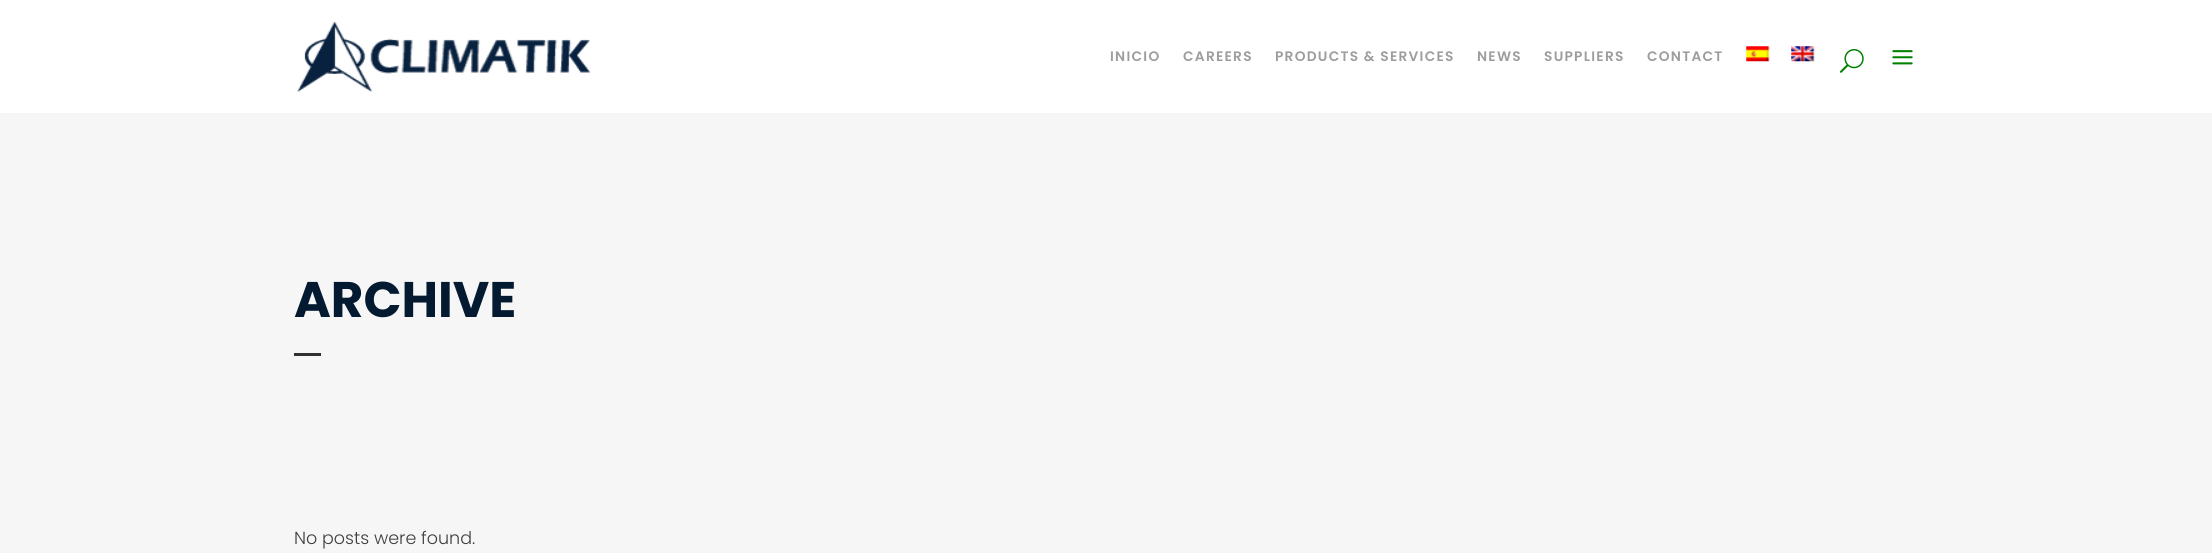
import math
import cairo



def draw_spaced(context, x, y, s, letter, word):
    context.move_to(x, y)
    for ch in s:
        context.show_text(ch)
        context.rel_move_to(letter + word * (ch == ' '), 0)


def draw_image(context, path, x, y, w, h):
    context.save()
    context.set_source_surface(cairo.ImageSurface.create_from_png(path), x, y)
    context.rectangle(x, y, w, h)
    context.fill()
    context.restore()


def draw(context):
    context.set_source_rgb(246 / 255, 246 / 255, 246 / 255)
    context.paint()
    context.set_source_rgb(1, 1, 1)
    context.rectangle(0, 0, 2212, 113)
    context.fill()
    draw_image(context, "images/1.png", 297, 21, 294, 71)
    draw_image(context, "images/2.png", 1746, 46, 24, 16)
    draw_image(context, "images/3.png", 1791, 46, 24, 16)
    draw_image(context, "images/4.png", 1839, 49, 25, 24)
    draw_image(context, "images/5.png", 1892, 50, 21, 15)
    context.set_source_rgb(48 / 255, 48 / 255, 48 / 255)
    context.rectangle(294, 353, 27, 3)
    context.fill()
    context.select_font_face("Poppins SemiBold")
    context.set_font_size(13.75)
    context.set_source_rgb(157 / 255, 157 / 255, 157 / 255)
    draw_spaced(context, 1110, 61, "INICIO", 1.25, 0)
    draw_spaced(context, 1183, 61, "CAREERS", 1.25, 0)
    draw_spaced(context, 1275, 61, "PRODUCTS & SERVICES", 1.25, 0)
    draw_spaced(context, 1477, 61, "NEWS", 1.25, 0)
    draw_spaced(context, 1544, 61, "SUPPLIERS", 1.25, 0)
    draw_spaced(context, 1647, 61, "CONTACT", 1.25, 0)
    context.select_font_face("Poppins", cairo.FontSlant.NORMAL, cairo.FontWeight.BOLD)
    context.set_font_size(50)
    context.set_source_rgb(3 / 255, 26 / 255, 49 / 255)
    context.move_to(294, 317)
    context.show_text("ARCHIVE")
    context.select_font_face("Poppins Light")
    context.set_font_size(17.5)
    context.set_source_rgb(62 / 255, 62 / 255, 62 / 255)
    context.move_to(294, 544)
    context.show_text("No posts were found.")


surface = cairo.ImageSurface(cairo.Format.RGB24, 2212, 553)
context = cairo.Context(surface)
options = cairo.FontOptions()
options.set_hint_metrics(cairo.HintMetrics.OFF)
options.set_hint_style(cairo.HintStyle.NONE)
context.set_font_options(options)
context.set_miter_limit(4)
draw(context)
surface.write_to_png("out.png")
